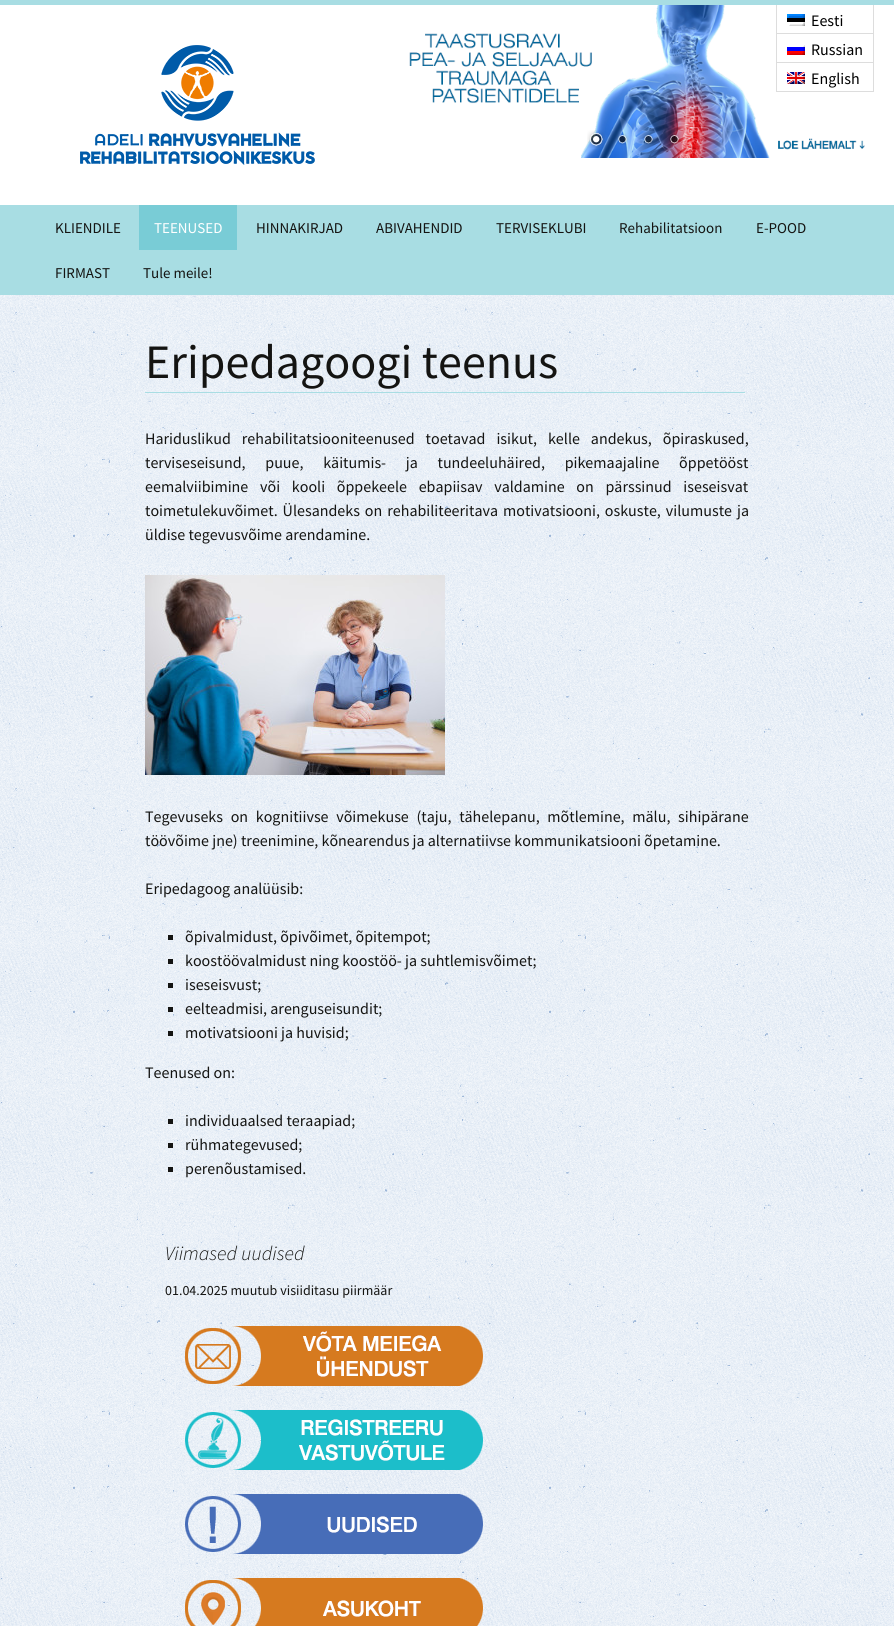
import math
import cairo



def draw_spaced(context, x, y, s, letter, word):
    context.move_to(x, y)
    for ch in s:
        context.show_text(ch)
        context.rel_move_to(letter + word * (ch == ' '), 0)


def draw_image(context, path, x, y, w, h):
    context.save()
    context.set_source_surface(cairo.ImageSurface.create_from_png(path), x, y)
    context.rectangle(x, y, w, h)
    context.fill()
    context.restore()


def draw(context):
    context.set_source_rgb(1, 1, 1)
    context.paint()
    draw_image(context, "images/1.png", 0, 295, 894, 1331)
    context.set_source_rgb(168 / 255, 221 / 255, 227 / 255)
    context.rectangle(0, 0, 894, 5)
    context.fill()
    draw_image(context, "images/2.png", 409, 5, 456, 153)
    draw_image(context, "images/3.png", 587, 130, 18, 18)
    draw_image(context, "images/4.png", 616, 133, 13, 12)
    draw_image(context, "images/5.png", 642, 133, 13, 12)
    draw_image(context, "images/6.png", 669, 133, 12, 12)
    draw_image(context, "images/7.png", 80, 45, 235, 120)
    context.set_source_rgb(221 / 255, 221 / 255, 221 / 255)
    context.rectangle(873, 5, 1, 87)
    context.fill()
    context.rectangle(776, 5, 1, 87)
    context.fill()
    context.rectangle(777, 33, 96, 1)
    context.fill()
    draw_image(context, "images/8.png", 787, 14, 18, 12)
    context.rectangle(777, 62, 96, 1)
    context.fill()
    draw_image(context, "images/9.png", 787, 45, 18, 10)
    context.rectangle(777, 91, 96, 1)
    context.fill()
    draw_image(context, "images/10.png", 787, 72, 18, 12)
    context.set_source_rgb(168 / 255, 221 / 255, 227 / 255)
    context.rectangle(0, 205, 894, 90)
    context.fill()
    context.set_source_rgb(121 / 255, 204 / 255, 214 / 255)
    context.rectangle(139, 205, 98, 45)
    context.fill()
    draw_image(context, "images/11.png", 145, 392, 600, 1)
    draw_image(context, "images/12.png", 145, 575, 300, 200)
    context.set_source_rgb(20 / 255, 20 / 255, 18 / 255)
    context.rectangle(168, 935, 5, 5)
    context.fill()
    context.rectangle(168, 959, 5, 5)
    context.fill()
    context.rectangle(168, 983, 5, 5)
    context.fill()
    context.rectangle(168, 1007, 5, 5)
    context.fill()
    context.rectangle(168, 1031, 5, 5)
    context.fill()
    context.rectangle(168, 1119, 5, 5)
    context.fill()
    context.rectangle(168, 1143, 5, 5)
    context.fill()
    context.rectangle(168, 1167, 5, 5)
    context.fill()
    draw_image(context, "images/13.png", 185, 1326, 298, 60)
    draw_image(context, "images/14.png", 185, 1410, 298, 60)
    draw_image(context, "images/15.png", 185, 1494, 298, 60)
    draw_image(context, "images/16.png", 185, 1578, 298, 48)
    context.select_font_face("Source Sans Pro")
    context.set_font_size(16)
    context.set_source_rgb(0, 0, 0)
    context.move_to(811, 26)
    context.show_text("Eesti")
    context.move_to(811, 55)
    context.show_text("Russian")
    context.move_to(811, 84)
    context.show_text("English")
    context.set_font_size(15)
    context.set_source_rgb(20 / 255, 20 / 255, 18 / 255)
    context.move_to(55, 233)
    context.show_text("KLIENDILE")
    context.set_source_rgb(1, 1, 1)
    context.move_to(154, 233)
    context.show_text("TEENUSED")
    context.set_source_rgb(20 / 255, 20 / 255, 18 / 255)
    context.move_to(256, 233)
    context.show_text("HINNAKIRJAD")
    context.move_to(376, 233)
    context.show_text("ABIVAHENDID")
    context.move_to(496, 233)
    context.show_text("TERVISEKLUBI")
    context.move_to(619, 233)
    context.show_text("Rehabilitatsioon")
    context.move_to(756, 233)
    context.show_text("E-POOD")
    context.move_to(55, 278)
    context.show_text("FIRMAST")
    context.move_to(143, 278)
    context.show_text("Tule meile!")
    context.set_font_size(48)
    context.move_to(145, 378)
    context.show_text("Eripedagoogi teenus")
    context.set_font_size(16)
    draw_spaced(context, 145, 444, "Hariduslikud rehabilitatsiooniteenused toetavad isikut, kelle andekus, õpiraskused,", 0, 7.75)
    draw_spaced(context, 145, 468, "terviseseisund, puue, käitumis- ja tundeeluhäired, pikemaajaline õppetööst", 0, 16.5)
    draw_spaced(context, 145, 492, "eemalviibimine või kooli õppekeele ebapiisav valdamine on pärssinud iseseisvat", 0, 8.5)
    draw_spaced(context, 145, 516, "toimetulekuvõimet. Ülesandeks on rehabiliteeritava motivatsiooni, oskuste, vilumuste ja", 0, 1.75)
    context.move_to(145, 540)
    context.show_text("üldise tegevusvõime arendamine.")
    draw_spaced(context, 145, 822, "Tegevuseks on kognitiivse võimekuse (taju, tähelepanu, mõtlemine, mälu, sihipärane", 0, 4.5)
    context.move_to(145, 846)
    context.show_text("töövõime jne) treenimine, kõnearendus ja alternatiivse kommunikatsiooni õpetamine.")
    context.move_to(145, 894)
    context.show_text("Eripedagoog analüüsib:")
    context.move_to(185, 942)
    context.show_text("õpivalmidust, õpivõimet, õpitempot;")
    context.move_to(185, 966)
    context.show_text("koostöövalmidust ning koostöö- ja suhtlemisvõimet;")
    context.move_to(185, 990)
    context.show_text("iseseisvust;")
    context.move_to(185, 1014)
    context.show_text("eelteadmisi, arenguseisundit;")
    context.move_to(185, 1038)
    context.show_text("motivatsiooni ja huvisid;")
    context.move_to(145, 1078)
    context.show_text("Teenused on:")
    context.move_to(185, 1126)
    context.show_text("individuaalsed teraapiad;")
    context.move_to(185, 1150)
    context.show_text("rühmategevused;")
    context.move_to(185, 1174)
    context.show_text("perenõustamised.")
    context.select_font_face("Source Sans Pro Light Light", cairo.FontSlant.ITALIC)
    context.set_font_size(20)
    context.move_to(165, 1260)
    context.show_text("Viimased uudised")
    context.select_font_face("Source Sans Pro")
    context.set_font_size(14)
    context.move_to(165, 1295)
    context.show_text("01.04.2025 muutub visiiditasu piirmäär")


surface = cairo.ImageSurface(cairo.Format.RGB24, 894, 1626)
context = cairo.Context(surface)
options = cairo.FontOptions()
options.set_hint_metrics(cairo.HintMetrics.OFF)
options.set_hint_style(cairo.HintStyle.NONE)
context.set_font_options(options)
context.set_miter_limit(4)
draw(context)
surface.write_to_png("out.png")
